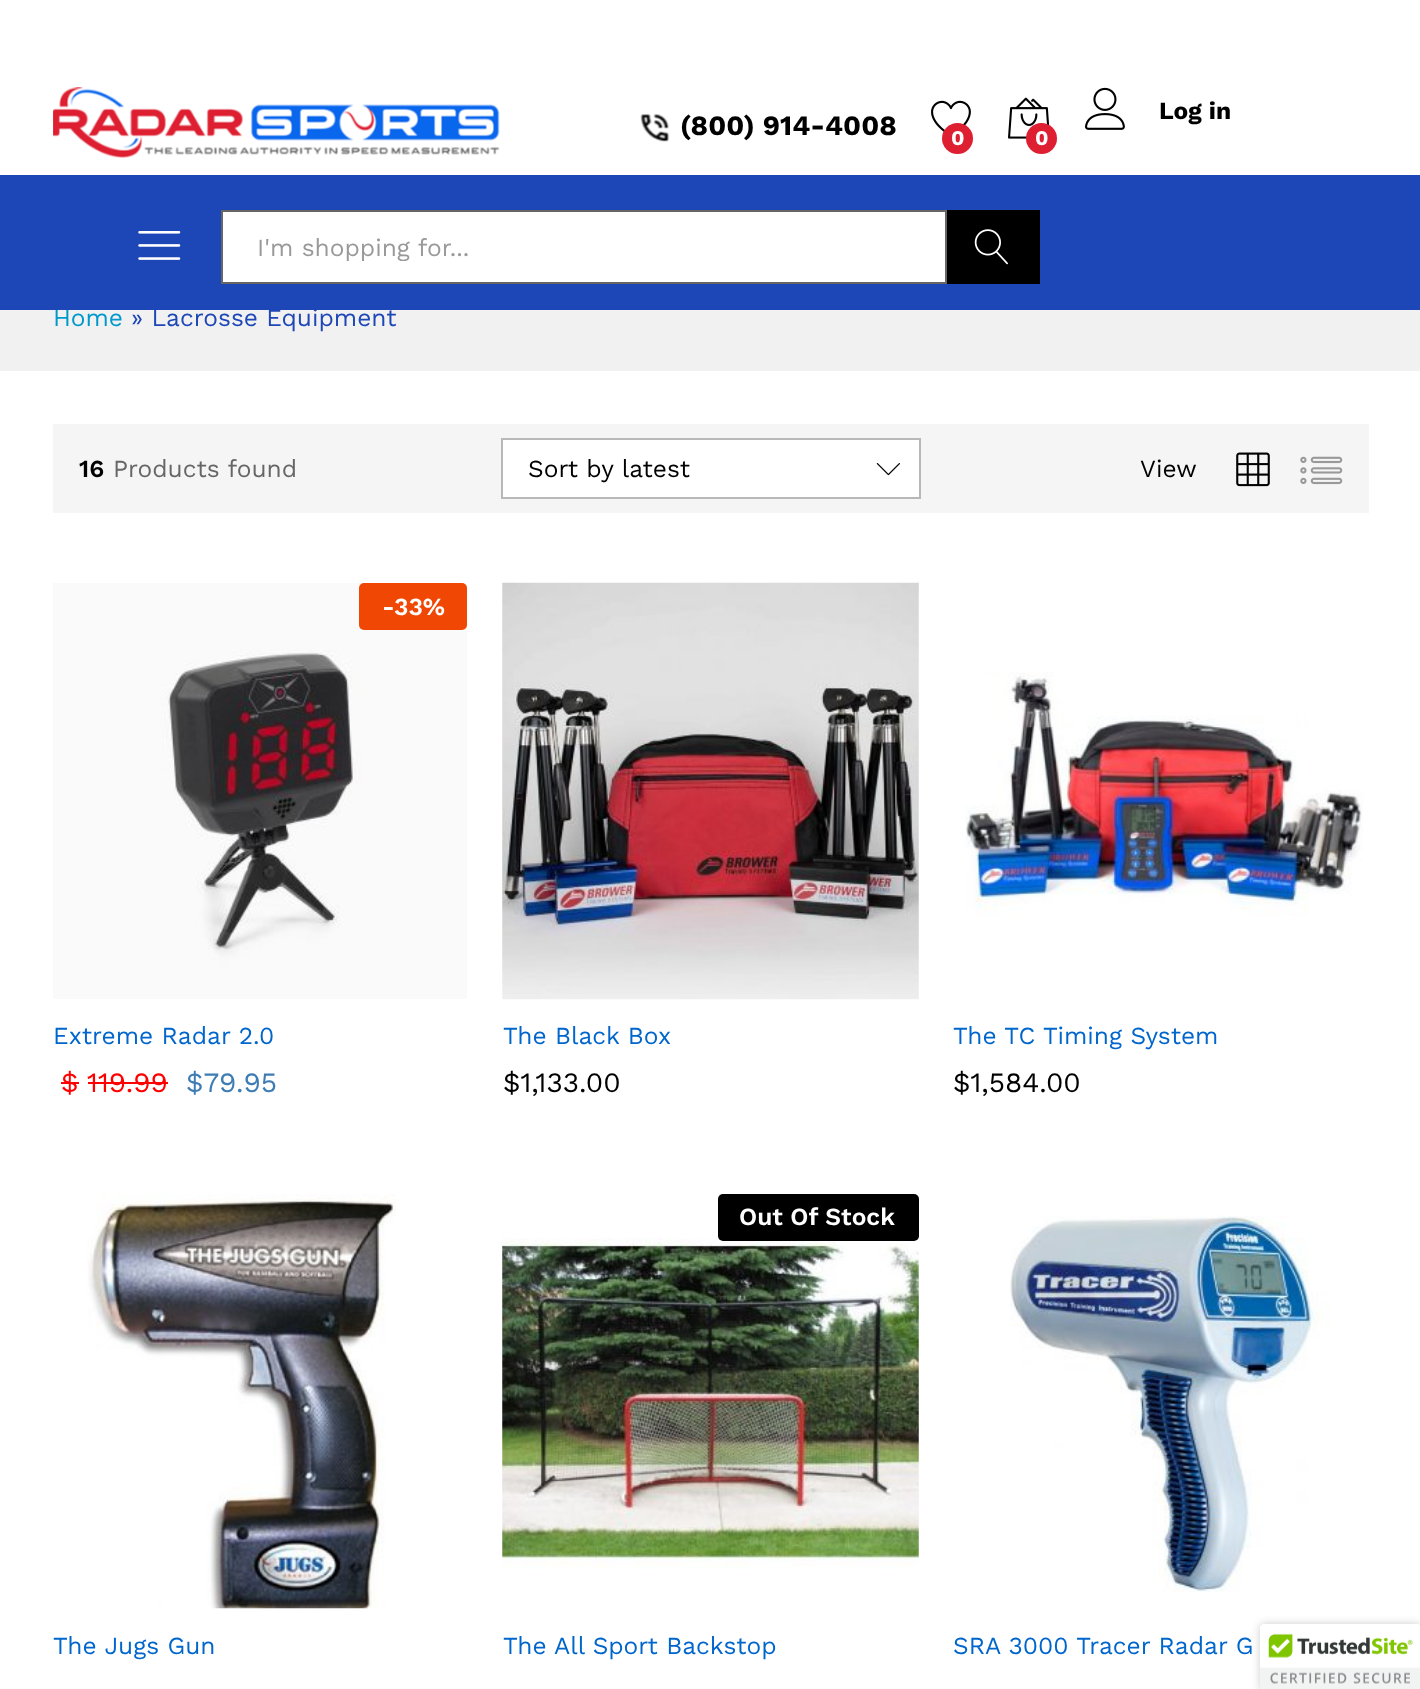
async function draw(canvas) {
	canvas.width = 1420;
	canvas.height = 1689;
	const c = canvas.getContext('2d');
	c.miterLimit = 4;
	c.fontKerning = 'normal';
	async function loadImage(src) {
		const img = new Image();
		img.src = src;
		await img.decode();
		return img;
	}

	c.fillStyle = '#fff';
	c.fillRect(0, 0, 1420, 1689);
	c.fillStyle = '#f1f1f1';
	c.fillRect(0, 310, 1420, 61);
	c.font = '24.5px Work Sans';
	c.fillStyle = '#09c';
	c.fillText('Home', 53, 326);
	c.fillStyle = '#1d46b7';
	c.fillRect(0, 175, 1420, 135);
	c.drawImage(await loadImage('img1.png'), 53, 87, 447, 71);
	c.drawImage(await loadImage('img2.png'), 640, 113, 30, 29);
	c.font = 'bold 28px Work Sans';
	c.fillStyle = '#000';
	c.fillText('(800) 914-4008', 680, 135);
	c.drawImage(await loadImage('img3.png'), 931, 100, 40, 32);
	c.fillStyle = '#dd1f31';
	c.beginPath();
	c.arc(957.5, 138.5, 15.5, 0, 2 * Math.PI);
	c.fill();
	c.font = 'bold 21px Work Sans';
	c.fillStyle = '#fff';
	c.fillText('0', 951, 145);
	c.drawImage(await loadImage('img4.png'), 1008, 97, 42, 42);
	c.fillStyle = '#dd1f31';
	c.beginPath();
	c.arc(1041.5, 138.5, 15.5, 0, 2 * Math.PI);
	c.fill();
	c.fillStyle = '#fff';
	c.fillText('0', 1035, 145);
	c.drawImage(await loadImage('img5.png'), 1085, 87, 40, 43);
	c.font = 'bold 24.5px Work Sans';
	c.fillStyle = '#000';
	c.fillText('Log in', 1159, 119);
	c.drawImage(await loadImage('img6.png'), 138, 231, 43, 29);
	c.fillStyle = '#fff';
	c.beginPath();
	c.rect(222, 211, 724, 72);
	c.fill();
	c.strokeStyle = '#666';
	c.lineWidth = 2;
	c.stroke();
	c.save();
	c.beginPath();
	c.rect(257, 233, 653, 28);
	c.clip();
	c.font = '24.5px Work Sans';
	c.fillStyle = '#999';
	c.fillText('I\'m shopping for...', 257, 256);
	c.restore();
	c.fillStyle = '#000';
	c.fillRect(947, 210, 93, 74);
	c.drawImage(await loadImage('img7.png'), 974, 229, 34, 36);
	c.font = '24.5px Work Sans';
	c.fillStyle = '#1d46b7';
	c.fillText('» Lacrosse Equipment', 131, 326);
	c.fillStyle = '#f5f5f5';
	c.fillRect(53, 424, 1316, 89);
	c.font = '600 24.5px Work Sans';
	c.fillStyle = '#000';
	c.fillText('16', 79, 477);
	c.font = '24.5px Work Sans';
	c.fillStyle = '#666';
	c.fillText('Products found', 113, 477);
	c.fillStyle = '#fff';
	c.beginPath();
	c.rect(502, 439, 418, 59);
	c.fill();
	c.strokeStyle = '#b8b8b8';
	c.stroke();
	c.fillStyle = '#000';
	c.fillText('Sort by latest', 528, 477);
	c.drawImage(await loadImage('img8.png'), 876, 463, 24, 13);
	c.fillText('View', 1140, 477);
	c.drawImage(await loadImage('img9.png'), 1236, 452, 34, 35);
	c.drawImage(await loadImage('img10.png'), 1300, 456, 43, 29);
	c.drawImage(await loadImage('img11.png'), 53, 583, 414, 416);
	c.fillStyle = '#f14705';
	c.beginPath();
	c.roundRect(359, 583, 108, 47, 5);
	c.fill();
	c.font = '600 24.5px Work Sans';
	c.fillStyle = '#fff';
	c.fillText('-', 382, 615);
	c.fillText('33%', 394, 615);
	c.font = '24.5px Work Sans';
	c.fillStyle = '#06c';
	c.fillText('Extreme Radar 2.0', 53, 1044);
	c.font = '28px Work Sans';
	c.fillStyle = '#f00';
	c.fillText('$', 61, 1092);
	c.fillRect(61, 1082, 18, 2);
	c.fillText('119.99', 87, 1092);
	c.fillRect(88, 1082, 80, 2);
	c.fillStyle = '#3e7cb4';
	c.fillText('$79.95', 186, 1092);
	c.drawImage(await loadImage('img12.png'), 502, 582, 417, 418);
	c.font = '24.5px Work Sans';
	c.fillStyle = '#06c';
	c.fillText('The Black Box', 503, 1044);
	c.font = '28px Work Sans';
	c.fillStyle = '#000';
	c.fillText('$1,133.00', 503, 1092);
	c.drawImage(await loadImage('img13.png'), 965, 672, 398, 244);
	c.font = '24.5px Work Sans';
	c.fillStyle = '#06c';
	c.fillText('The TC Timing System', 953, 1044);
	c.font = '28px Work Sans';
	c.fillStyle = '#000';
	c.fillText('$1,584.00', 953, 1092);
	c.drawImage(await loadImage('img14.png'), 87, 1194, 309, 415);
	c.font = '24.5px Work Sans';
	c.fillStyle = '#06c';
	c.fillText('The Jugs Gun', 53, 1654);
	c.drawImage(await loadImage('img15.png'), 502, 1238, 417, 331);
	c.fillStyle = '#000';
	c.beginPath();
	c.roundRect(718, 1194, 201, 47, 5);
	c.fill();
	c.font = '600 24.5px Work Sans';
	c.fillStyle = '#fff';
	c.fillText('Out Of Stock', 739, 1225);
	c.font = '24.5px Work Sans';
	c.fillStyle = '#06c';
	c.fillText('The All Sport Backstop', 503, 1654);
	c.drawImage(await loadImage('img16.png'), 1010, 1215, 320, 377);
	c.fillText('SRA 3000 Tracer Radar G', 953, 1654);
	c.fillStyle = '#00000033';
	c.filter = 'blur(4.5px)';
	c.beginPath();
	c.roundRect(1260, 1624, 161, 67, 4);
	c.fill();
	c.filter = 'none';
	c.fillStyle = '#fff';
	c.beginPath();
	c.moveTo(1264, 1624);
	c.lineTo(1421, 1624);
	c.lineTo(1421, 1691);
	c.lineTo(1260, 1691);
	c.lineTo(1260, 1628);
	c.bezierCurveTo(1260, 1626, 1262, 1624, 1264, 1624);
	c.closePath();
	c.fill();
	c.drawImage(await loadImage('img17.png'), 1260, 1624, 160, 65);
}

draw(document.querySelector('canvas'));
